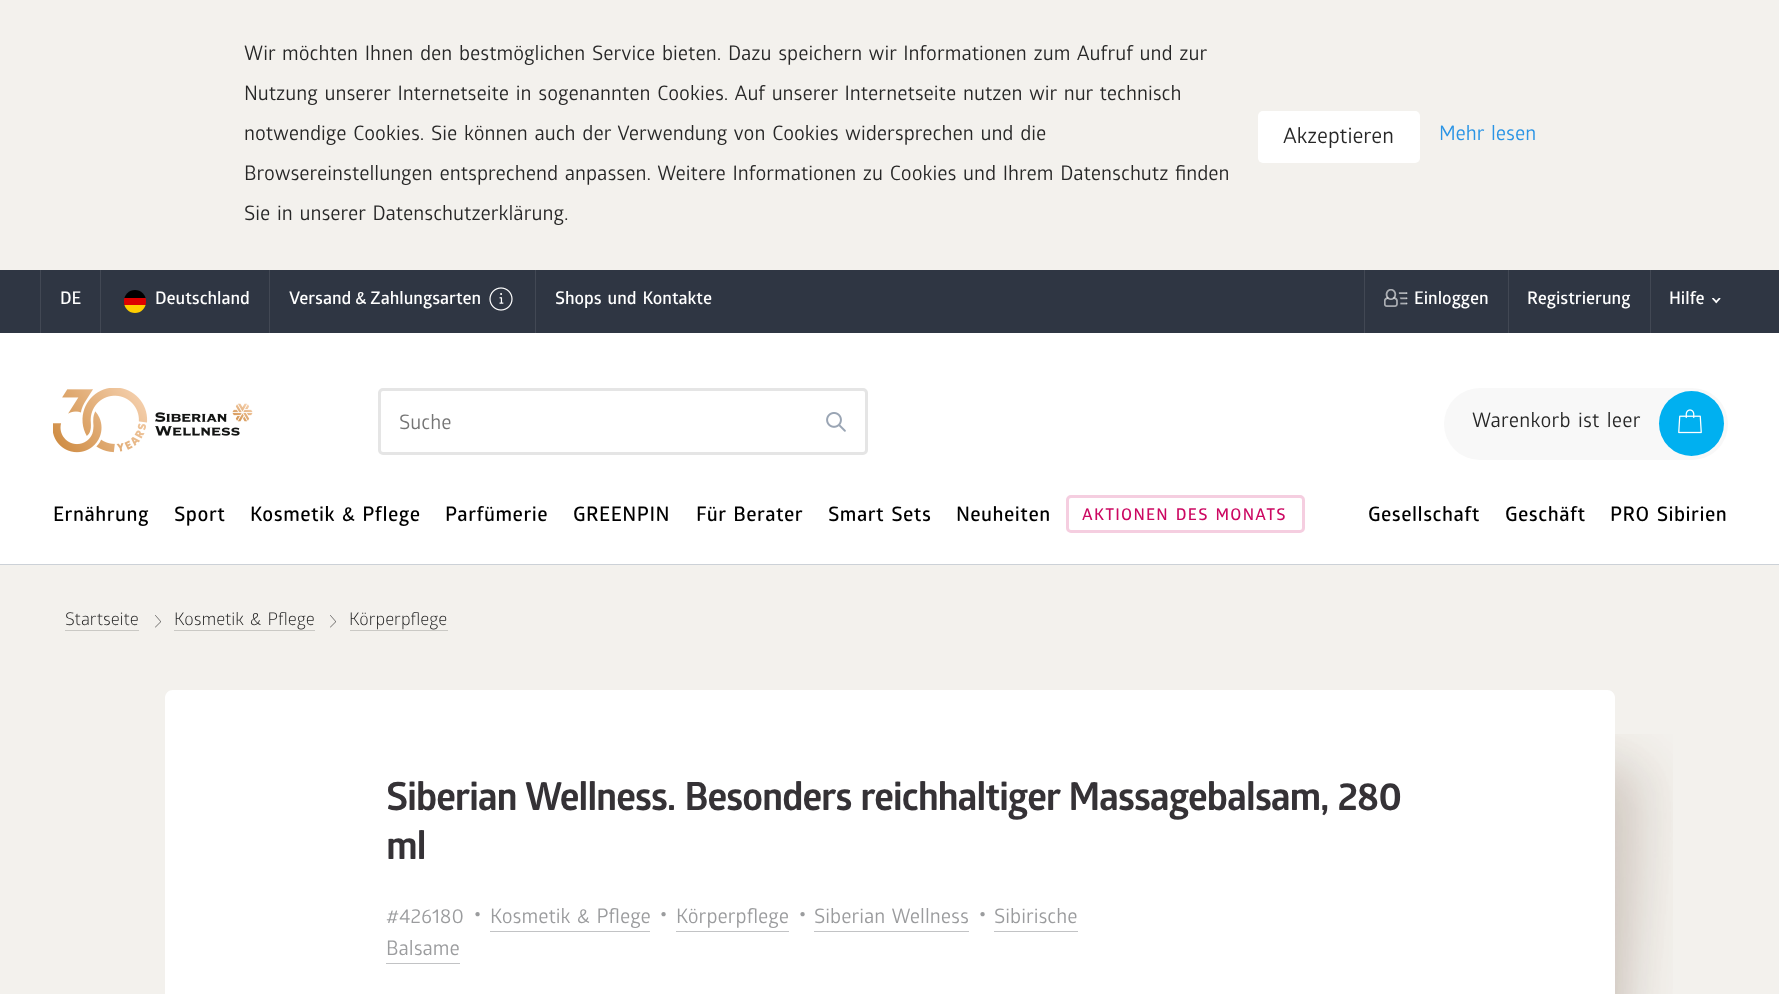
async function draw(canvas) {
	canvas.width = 1779;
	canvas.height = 994;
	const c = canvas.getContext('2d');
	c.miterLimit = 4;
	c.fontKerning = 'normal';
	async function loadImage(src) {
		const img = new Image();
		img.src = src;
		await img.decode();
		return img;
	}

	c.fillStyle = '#fff';
	c.fillRect(0, 0, 1779, 994);
	c.fillStyle = '#f3f1ed';
	c.fillRect(0, 0, 1779, 270);
	c.wordSpacing = '2px';
	c.font = '20px "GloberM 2"';
	c.fillStyle = '#272727';
	for (const [text, x, y] of [
		['Wir möchten Ihnen den bestmöglichen Service bieten. Dazu speichern wir Informationen zum Aufruf und zur', 244, 60],
		['Nutzung unserer Internetseite in sogenannten Cookies. Auf unserer Internetseite nutzen wir nur technisch', 244, 100],
		['notwendige Cookies. Sie können auch der Verwendung von Cookies widersprechen und die', 244, 140],
		['Browsereinstellungen entsprechend anpassen. Weitere Informationen zu Cookies und Ihrem Datenschutz finden', 244, 180],
		['Sie in unserer Datenschutzerklärung.', 244, 220],
	]) {
		c.fillText(text, x, y);
	}
	c.fillStyle = '#fff';
	c.beginPath();
	c.roundRect(1258, 111, 162, 52, 5);
	c.fill();
	c.wordSpacing = '0px';
	c.font = '21.25px "GloberM 2"';
	c.fillStyle = '#272727';
	c.fillText('Akzeptieren', 1283, 143);
	c.wordSpacing = '2px';
	c.font = '20px "GloberM 2"';
	c.fillStyle = '#2a94e5';
	c.fillText('Mehr lesen', 1439, 140);
	c.fillStyle = '#2f3643';
	c.fillRect(0, 270, 1779, 63);
	c.fillStyle = '#424854';
	c.fillRect(40, 270, 1, 63);
	c.wordSpacing = '0px';
	c.font = '600 17.5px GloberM';
	c.fillStyle = '#fff';
	c.fillText('DE', 60, 304);
	c.fillStyle = '#424854';
	c.fillRect(100, 270, 1, 63);
	c.save();
	c.beginPath();
	c.roundRect(124, 290, 22, 23, 11);
	c.clip();
	for (const [x, y, w, h, color] of [
		[124, 305, 22, 8, '#ffce00'],
		[124, 290, 22, 8, '#000'],
		[124, 298, 22, 7, '#d00'],
	]) {
		c.fillStyle = color;
		c.fillRect(x, y, w, h);
	}
	c.restore();
	c.fillStyle = '#fff';
	c.fillText('Deutschland', 155, 304);
	c.fillStyle = '#424854';
	c.fillRect(269, 270, 1, 63);
	c.fillStyle = '#fff';
	c.fillText('Versand & Zahlungsarten', 289, 304);
	c.drawImage(await loadImage('img1.png'), 489, 287, 24, 24);
	c.fillStyle = '#424854';
	c.fillRect(535, 270, 1, 63);
	c.wordSpacing = '2px';
	c.fillStyle = '#fff';
	c.fillText('Shops und Kontakte', 555, 304);
	c.fillStyle = '#424854';
	c.fillRect(1364, 270, 1, 63);
	c.drawImage(await loadImage('img2.png'), 1384, 289, 24, 18);
	c.wordSpacing = '0px';
	c.fillStyle = '#fff';
	c.fillText('Einloggen', 1414, 304);
	c.fillStyle = '#424854';
	c.fillRect(1508, 270, 1, 63);
	c.fillStyle = '#fff';
	c.fillText('Registrierung', 1527, 304);
	c.fillStyle = '#424854';
	c.fillRect(1650, 270, 1, 63);
	c.fillStyle = '#fff';
	c.fillText('Hilfe', 1669, 304);
	c.drawImage(await loadImage('img3.png'), 1712, 298, 9, 6);
	c.fillStyle = '#ccd1d7';
	c.fillRect(0, 564, 1779, 1);
	c.drawImage(await loadImage('img4.png'), 53, 388, 200, 65);
	c.beginPath();
	c.roundRect(379.5, 389.5, 487, 64, 3.5);
	c.strokeStyle = '#e5e5e5';
	c.lineWidth = 3;
	c.stroke();
	c.font = '20px "GloberM 2"';
	c.fillStyle = '#757575';
	c.fillText('Suche', 399, 429);
	c.drawImage(await loadImage('img5.png'), 826, 412, 20, 20);
	c.fillStyle = '#f8f8f8';
	c.beginPath();
	c.roundRect(1444, 388, 284, 72, 36);
	c.fill();
	c.letterSpacing = '0.25px';
	c.wordSpacing = '2px';
	c.fillStyle = '#272727';
	c.fillText('Warenkorb ist leer', 1472, 427);
	c.fillStyle = '#00b0f0';
	c.beginPath();
	c.arc(1691.5, 423.5, 32.5, 0, 2 * Math.PI);
	c.fill();
	c.drawImage(await loadImage('img6.png'), 1678, 409, 24, 25);
	c.letterSpacing = '0.5px';
	c.wordSpacing = '0px';
	c.font = '600 20px GloberM';
	c.fillStyle = '#000';
	c.fillText('Ernährung', 53, 521);
	c.fillText('Sport', 174, 521);
	c.wordSpacing = '2px';
	c.fillText('Kosmetik & Pflege', 250, 521);
	c.wordSpacing = '0px';
	c.fillText('Parfümerie', 445, 521);
	c.fillText('GREENPIN', 573, 521);
	c.wordSpacing = '2px';
	c.fillText('Für Berater', 696, 521);
	c.fillText('Smart Sets', 828, 521);
	c.wordSpacing = '0px';
	c.fillText('Neuheiten', 956, 521);
	c.beginPath();
	c.roundRect(1067.5, 496.5, 236, 35, 3.5);
	c.strokeStyle = '#f5cee0';
	c.stroke();
	c.letterSpacing = '1.25px';
	c.wordSpacing = '2px';
	c.font = '600 16.25px GloberM';
	c.fillStyle = '#cc0862';
	c.fillText('AKTIONEN DES MONATS', 1082, 520);
	c.letterSpacing = '0.5px';
	c.wordSpacing = '0px';
	c.font = '600 20px GloberM';
	c.fillStyle = '#000';
	c.fillText('Gesellschaft', 1368, 521);
	c.fillText('Geschäft', 1505, 521);
	c.wordSpacing = '2px';
	c.fillText('PRO Sibirien', 1610, 521);
	c.fillStyle = '#f3f1ed';
	c.fillRect(0, 565, 1779, 429);
	c.drawImage(await loadImage('img7.png'), 155, 615, 6, 13);
	c.letterSpacing = '0px';
	c.wordSpacing = '0px';
	c.font = '17.5px GloberM';
	c.fillStyle = '#272727';
	c.fillText('Startseite', 65, 625);
	c.fillStyle = '#cac9c5';
	c.fillRect(65, 630, 74, 1);
	c.drawImage(await loadImage('img7.png'), 330, 615, 6, 13);
	c.wordSpacing = '2px';
	c.fillStyle = '#272727';
	c.fillText('Kosmetik & Pflege', 174, 625);
	c.fillStyle = '#cac9c5';
	c.fillRect(174, 630, 141, 1);
	c.wordSpacing = '0px';
	c.fillStyle = '#272727';
	c.fillText('Körperpflege', 349, 625);
	c.fillStyle = '#cac9c5';
	c.fillRect(350, 630, 98, 1);
	c.fillStyle = '#fff';
	c.beginPath();
	c.moveTo(173, 690);
	c.lineTo(1607, 690);
	c.bezierCurveTo(1611.5, 690, 1615, 693.5, 1615, 698);
	c.lineTo(1615, 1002);
	c.lineTo(165, 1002);
	c.lineTo(165, 698);
	c.bezierCurveTo(165, 693.5, 168.5, 690, 173, 690);
	c.closePath();
	c.fill();
	c.letterSpacing = '-1.25px';
	c.wordSpacing = '2px';
	c.font = 'bold 38.75px GloberM';
	c.fillStyle = '#353236';
	c.fillText('Siberian Wellness. Besonders reichhaltiger Massagebalsam, 280', 386, 810);
	c.wordSpacing = '0px';
	c.fillText('ml', 386, 859);
	c.letterSpacing = '0px';
	c.font = '20px "GloberM 2"';
	c.fillStyle = '#9b9c9e';
	c.fillText('#426180', 386, 923);
	c.font = '35px "GloberM 2"';
	c.fillText('•', 472, 924);
	c.wordSpacing = '2px';
	c.font = '20px "GloberM 2"';
	c.fillText('Kosmetik & Pflege', 490, 923);
	c.fillStyle = '#c2c3c5';
	c.fillRect(490, 931, 160, 1);
	c.wordSpacing = '0px';
	c.font = '35px "GloberM 2"';
	c.fillStyle = '#9b9c9e';
	c.fillText('•', 658, 924);
	c.font = '20px "GloberM 2"';
	c.fillText('Körperpflege', 676, 923);
	c.fillStyle = '#c2c3c5';
	c.fillRect(676, 931, 113, 1);
	c.font = '35px "GloberM 2"';
	c.fillStyle = '#9b9c9e';
	c.fillText('•', 797, 924);
	c.wordSpacing = '2px';
	c.font = '20px "GloberM 2"';
	c.fillText('Siberian Wellness', 814, 923);
	c.fillStyle = '#c2c3c5';
	c.fillRect(814, 931, 155, 1);
	c.wordSpacing = '0px';
	c.font = '35px "GloberM 2"';
	c.fillStyle = '#9b9c9e';
	c.fillText('•', 977, 924);
	c.font = '20px "GloberM 2"';
	c.fillText('Sibirische', 994, 923);
	c.fillStyle = '#c2c3c5';
	c.fillRect(994, 931, 84, 1);
	c.fillStyle = '#9b9c9e';
	c.fillText('Balsame', 386, 955);
	c.fillStyle = '#c2c3c5';
	c.fillRect(386, 963, 74, 1);
	c.drawImage(await loadImage('img8.png'), 1615, 734, 58, 260);
}

draw(document.querySelector('canvas'));
